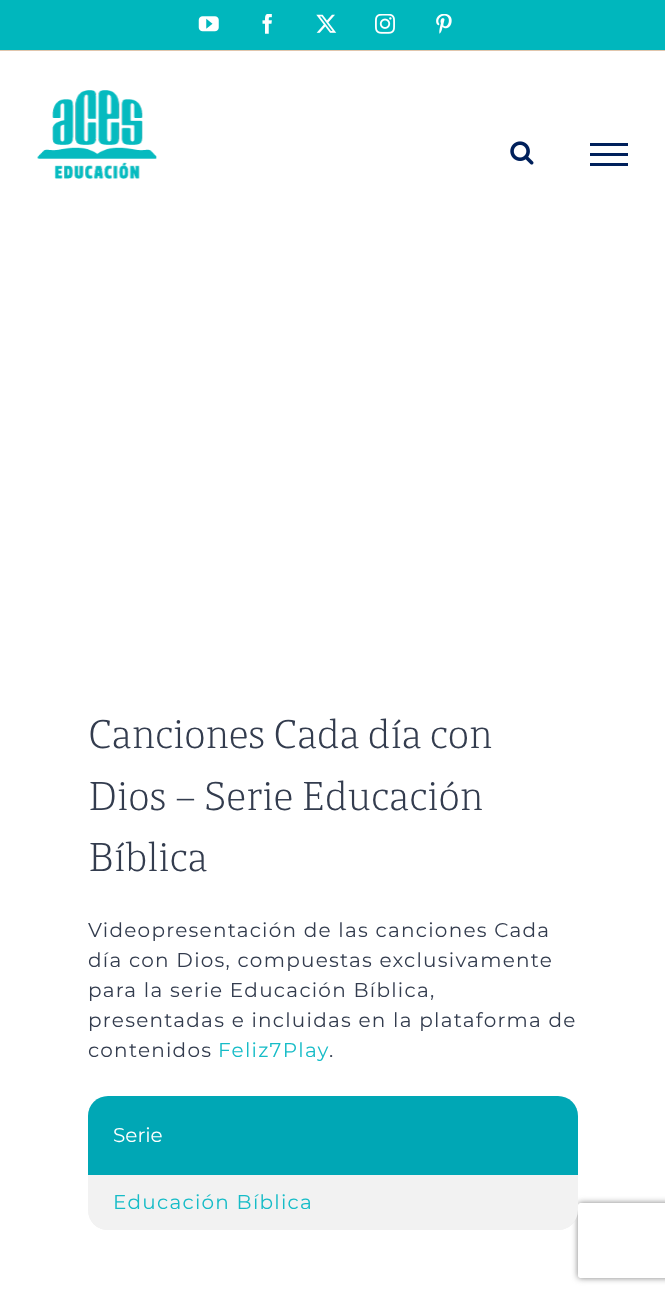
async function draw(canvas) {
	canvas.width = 665;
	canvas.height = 1294;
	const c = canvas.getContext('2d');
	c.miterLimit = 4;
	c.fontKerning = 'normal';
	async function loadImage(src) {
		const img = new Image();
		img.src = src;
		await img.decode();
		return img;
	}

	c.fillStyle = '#fff';
	c.fillRect(0, 0, 665, 1294);
	c.fillStyle = '#00b7bd';
	c.fillRect(0, 0, 665, 50);
	c.fillStyle = '#e0c6ad';
	c.fillRect(0, 50, 665, 1);
	c.drawImage(await loadImage('img1.png'), 198, 16, 21, 16);
	c.drawImage(await loadImage('img2.png'), 262, 14, 10, 20);
	c.drawImage(await loadImage('img3.png'), 316, 14, 21, 19);
	c.drawImage(await loadImage('img4.png'), 375, 14, 20, 20);
	c.drawImage(await loadImage('img5.png'), 436, 14, 16, 20);
	c.drawImage(await loadImage('img6.png'), 37, 90, 120, 89);
	c.drawImage(await loadImage('img7.png'), 510, 141, 24, 24);
	for (const [x, y, w, h, color] of [
		[590, 143, 38, 3, '#00205b'],
		[590, 153, 38, 3, '#00205b'],
		[590, 163, 38, 3, '#00205b'],
	]) {
		c.fillStyle = color;
		c.fillRect(x, y, w, h);
	}
	c.font = '44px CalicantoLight';
	c.fillStyle = '#333c4e';
	for (const [text, x, y] of [
		['Canciones Cada día con', 88, 748],
		['Dios – Serie Educación', 88, 810],
		['Bíblica', 88, 871],
	]) {
		c.fillText(text, x, y);
	}
	c.letterSpacing = '1.25px';
	c.font = '20px Montserrat';
	for (const [text, x, y] of [
		['Videopresentación de las canciones Cada', 88, 937],
		['día con Dios, compuestas exclusivamente', 88, 967],
		['para la serie Educación Bíblica,', 88, 997],
		['presentadas e incluidas en la plataforma de', 88, 1027],
		['contenidos', 88, 1057],
	]) {
		c.fillText(text, x, y);
	}
	c.fillStyle = '#16bcc7';
	c.fillText('Feliz7Play', 218, 1057);
	c.fillStyle = '#333c4e';
	c.fillText('.', 329, 1057);
	c.save();
	c.beginPath();
	c.roundRect(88, 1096, 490, 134, 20);
	c.clip();
	c.fillStyle = '#00000014';
	c.filter = 'blur(2px)';
	c.beginPath();
	c.rect(88, 1098, 490, 133);
	c.fill();
	c.filter = 'none';
	c.restore();
	c.fillStyle = '#00a7b5';
	c.beginPath();
	c.roundRect(88, 1096, 490, 79, [20, 20, 0, 0]);
	c.fill();
	c.letterSpacing = '0px';
	c.fillStyle = '#fff';
	c.fillText('Serie', 113, 1142);
	c.save();
	c.beginPath();
	c.moveTo(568, 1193);
	c.lineTo(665, 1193);
	c.lineTo(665, 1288);
	c.lineTo(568, 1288);
	c.closePath();
	c.moveTo(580.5, 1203);
	c.lineTo(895.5, 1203);
	c.bezierCurveTo(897, 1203, 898, 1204, 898, 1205.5);
	c.lineTo(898, 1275.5);
	c.bezierCurveTo(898, 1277, 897, 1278, 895.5, 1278);
	c.lineTo(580.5, 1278);
	c.bezierCurveTo(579, 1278, 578, 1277, 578, 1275.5);
	c.lineTo(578, 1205.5);
	c.bezierCurveTo(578, 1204, 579, 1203, 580.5, 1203);
	c.closePath();
	c.clip('evenodd');
	c.fillStyle = '#808080';
	c.filter = 'blur(3px)';
	c.beginPath();
	c.roundRect(578, 1203, 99, 75, 2.5);
	c.fill();
	c.filter = 'none';
	c.restore();
	c.fillStyle = '#f2f2f2';
	c.beginPath();
	c.roundRect(88, 1175, 490, 55, [0, 0, 20, 20]);
	c.fill();
	c.letterSpacing = '1.25px';
	c.fillStyle = '#16bcc7';
	c.fillText('Educación Bíblica', 113, 1209);
}

draw(document.querySelector('canvas'));
